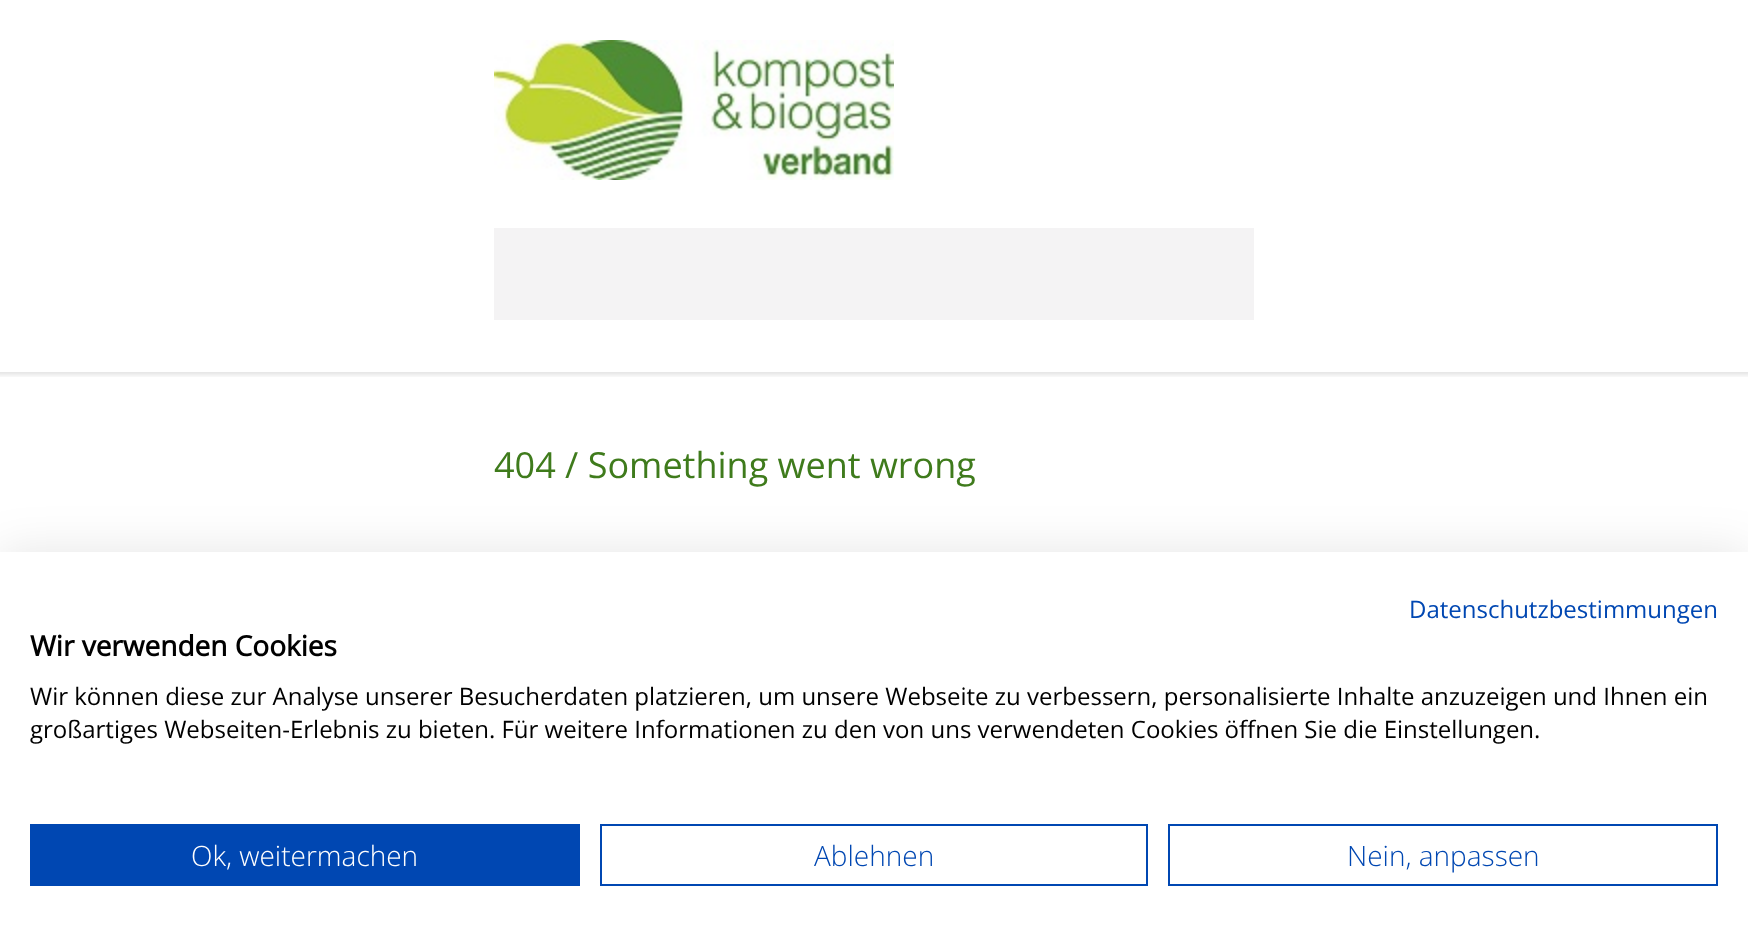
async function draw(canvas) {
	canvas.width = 1748;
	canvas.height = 940;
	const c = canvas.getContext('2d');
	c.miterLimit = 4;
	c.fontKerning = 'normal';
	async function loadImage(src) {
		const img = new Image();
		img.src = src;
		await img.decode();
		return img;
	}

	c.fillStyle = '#fff';
	c.fillRect(0, 0, 1748, 940);
	c.drawImage(await loadImage('img1.png'), 494, 40, 400, 140);
	c.fillStyle = '#f4f3f4';
	c.fillRect(494, 228, 760, 92);
	c.drawImage(await loadImage('img2.png'), 0, 372, 1748, 5);
	c.font = '36px Open Sans';
	c.fillStyle = '#3f7b1c';
	c.fillText('404 / Something went wrong', 494, 478);
	c.fillStyle = '#0000001a';
	c.filter = 'blur(24px)';
	c.beginPath();
	c.rect(0, 552, 1748, 388);
	c.fill();
	c.filter = 'none';
	c.fillStyle = '#fff';
	c.fillRect(0, 552, 1748, 388);
	c.font = '24px Open Sans';
	c.fillStyle = '#0047b2';
	c.fillText('Datenschutzbestimmungen', 1409, 618);
	c.font = 'bold 28px Open Sans';
	c.fillStyle = '#000';
	c.fillText('Wir verwenden Cookies', 30, 656);
	c.font = '24px Open Sans';
	c.fillText('Wir können diese zur Analyse unserer Besucherdaten platzieren, um unsere Webseite zu verbessern, personalisierte Inhalte anzuzeigen und Ihnen ein', 30, 705);
	c.fillText('großartiges Webseiten-Erlebnis zu bieten. Für weitere Informationen zu den von uns verwendeten Cookies öffnen Sie die Einstellungen.', 30, 738);
	c.fillStyle = '#0047b2';
	c.fillRect(30, 824, 550, 62);
	c.font = '300 28px Open Sans';
	c.fillStyle = '#fff';
	c.fillText('Ok, weitermachen', 191, 866);
	c.strokeStyle = '#0047b2';
	c.lineWidth = 2;
	c.strokeRect(601, 825, 546, 60);
	c.fillStyle = '#0047b2';
	c.fillText('Ablehnen', 814, 866);
	c.strokeRect(1169, 825, 548, 60);
	c.fillText('Nein, anpassen', 1347, 866);
}

draw(document.querySelector('canvas'));
